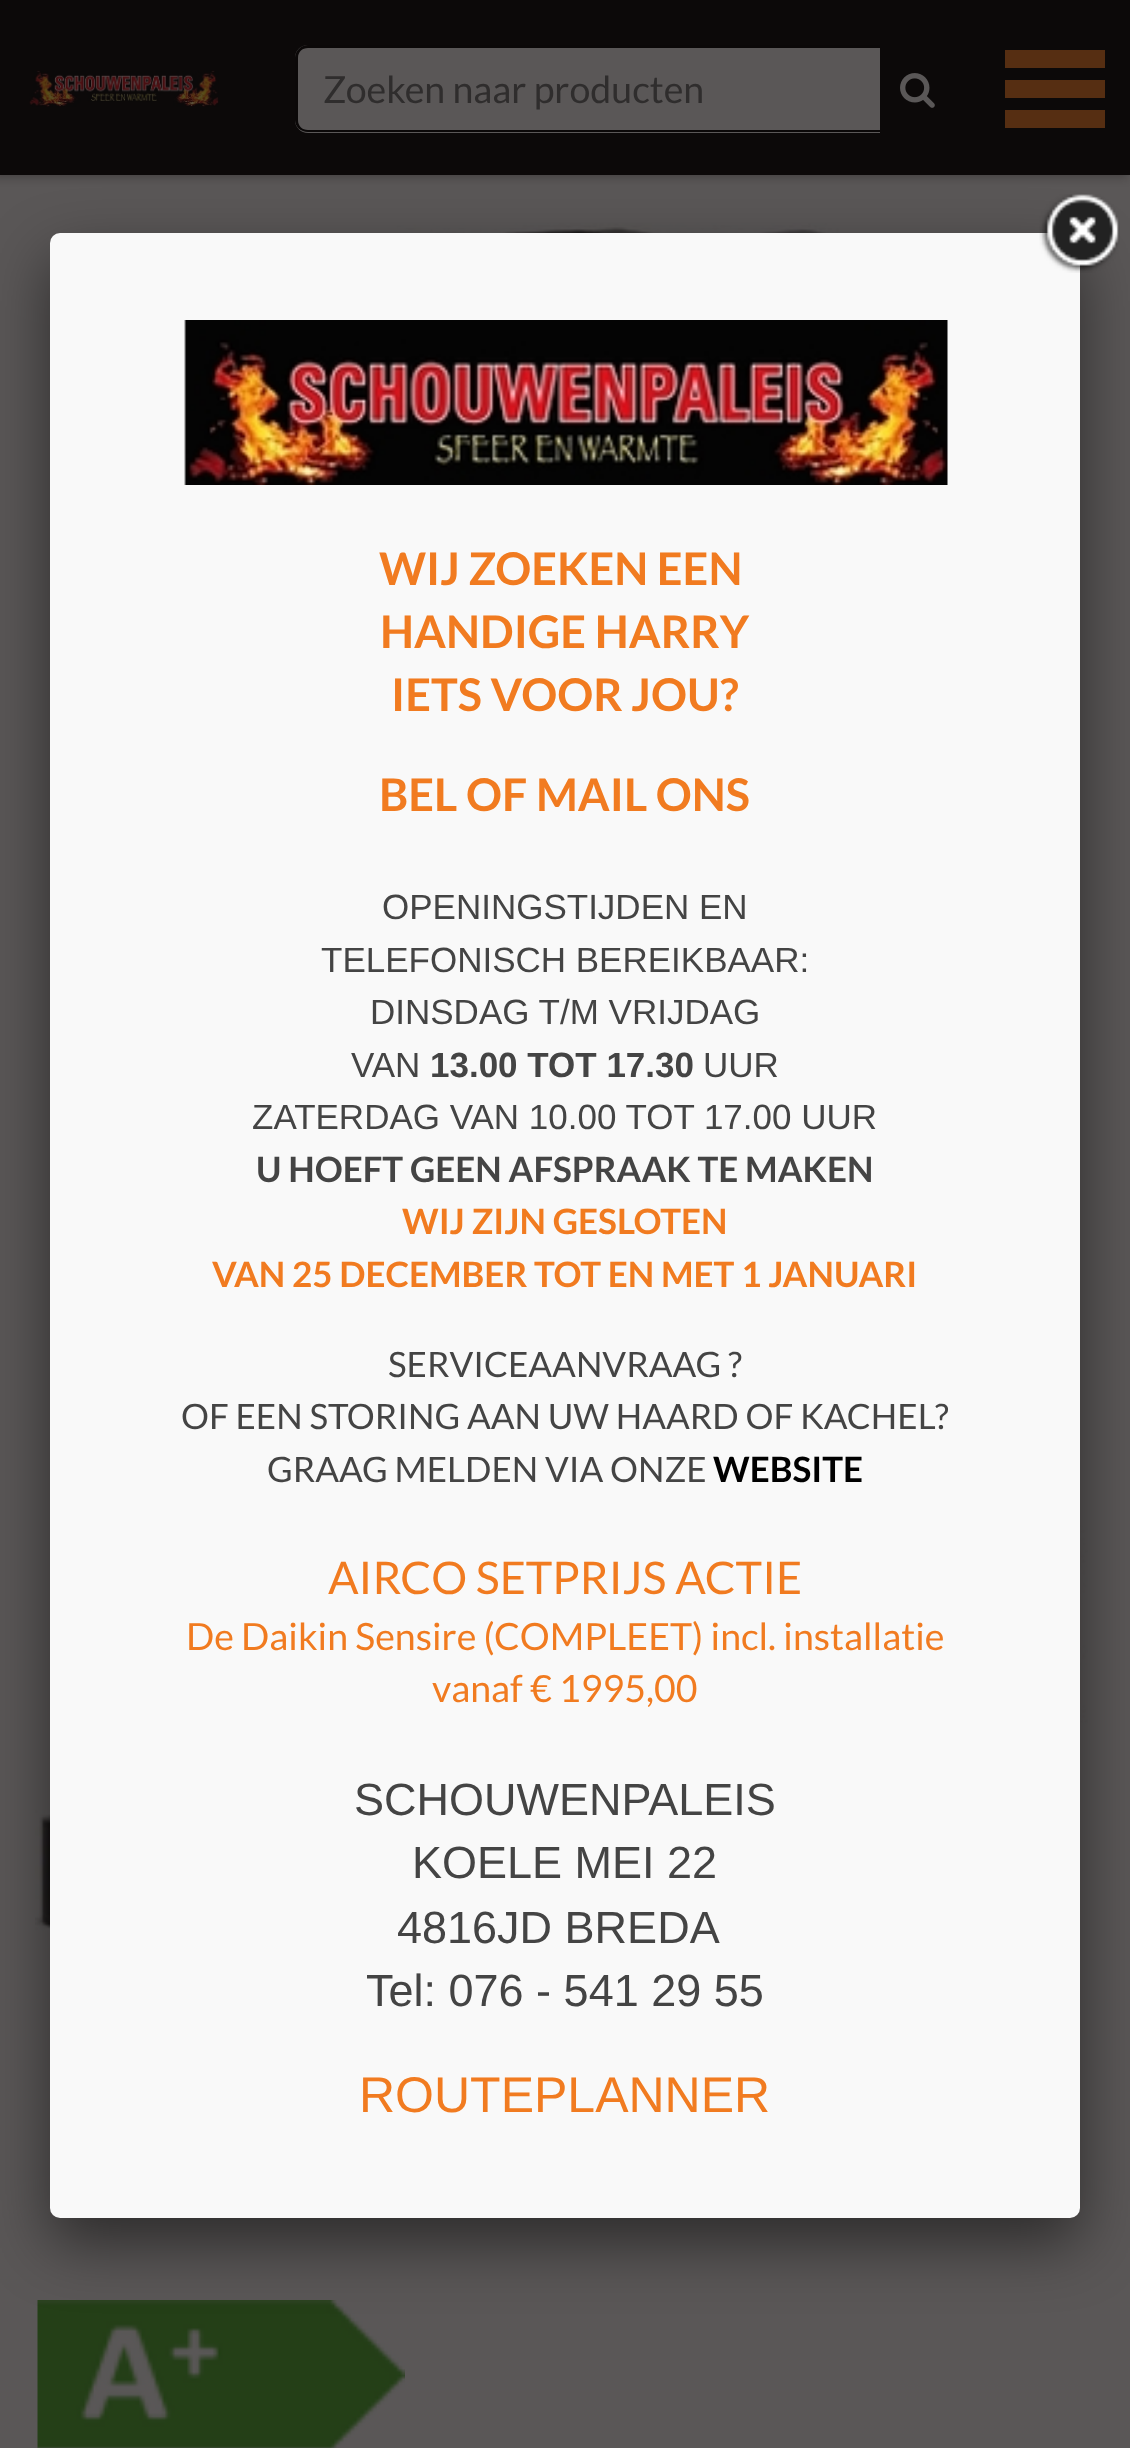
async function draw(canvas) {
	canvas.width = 1130;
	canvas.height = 2448;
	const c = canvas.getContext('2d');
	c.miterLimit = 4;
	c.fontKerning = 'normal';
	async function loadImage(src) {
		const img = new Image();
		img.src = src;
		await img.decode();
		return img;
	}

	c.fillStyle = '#5a5757';
	c.fillRect(0, 0, 1130, 2448);
	c.fillStyle = '#0b080840';
	c.filter = 'blur(4px)';
	c.beginPath();
	c.rect(-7, -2, 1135, 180);
	c.fill();
	c.filter = 'none';
	c.fillStyle = '#0c0909';
	c.fillRect(0, 0, 1130, 175);
	c.drawImage(await loadImage('img1.png'), 29, 70, 190, 37);
	c.fillStyle = '#5a5757';
	c.beginPath();
	c.roundRect(295, 45, 585, 88, [13, 0, 0, 13]);
	c.fill();
	c.fillStyle = '#0b0808';
	c.beginPath();
	c.moveTo(308, 45);
	c.lineTo(880, 45);
	c.lineTo(880, 132);
	c.lineTo(308, 132);
	c.bezierCurveTo(301, 132, 295, 127, 295, 120);
	c.lineTo(295, 58);
	c.bezierCurveTo(295, 51, 301, 45, 308, 45);
	c.closePath();
	c.moveTo(308, 48);
	c.lineTo(880, 48);
	c.lineTo(880, 130);
	c.lineTo(308, 130);
	c.bezierCurveTo(302, 130, 298, 126, 298, 120);
	c.lineTo(298, 58);
	c.bezierCurveTo(298, 52, 302, 48, 308, 48);
	c.closePath();
	c.fill('evenodd');
	c.font = '37.5px Lato';
	c.fillStyle = '#2f2d2d';
	c.fillText('Zoeken naar producten', 323, 103);
	c.drawImage(await loadImage('img2.png'), 900, 73, 35, 35);
	for (const [x, y, w, h, color] of [
		[1005, 50, 100, 18, '#562e12'],
		[1005, 80, 100, 18, '#562e12'],
		[1005, 110, 100, 18, '#562e12'],
	]) {
		c.fillStyle = color;
		c.fillRect(x, y, w, h);
	}
	c.drawImage(await loadImage('img3.png'), 181, 223, 665, 10);
	c.drawImage(await loadImage('img4.png'), 1080, 1525, 8, 200);
	c.drawImage(await loadImage('img5.png'), 35, 1790, 15, 141);
	c.drawImage(await loadImage('img6.png'), 37, 2300, 368, 148);
	c.fillStyle = '#00000080';
	c.filter = 'blur(31px)';
	c.beginPath();
	c.roundRect(50, 258, 1030, 1985, 10);
	c.fill();
	c.filter = 'none';
	c.fillStyle = '#f9f9f9';
	c.beginPath();
	c.roundRect(50, 233, 1030, 1985, 10);
	c.fill();
	c.drawImage(await loadImage('img7.png'), 1039, 194, 81, 79);
	c.drawImage(await loadImage('img8.png'), 184, 320, 764, 165);
	c.font = 'bold 45px Lato';
	c.fillStyle = '#f17b20';
	for (const [text, x, y] of [
		['WIJ ZOEKEN EEN', 379, 585],
		['HANDIGE HARRY', 380, 648],
		['IETS VOOR JOU?', 391, 711],
		['BEL OF MAIL ONS', 379, 811],
	]) {
		c.fillText(text, x, y);
	}
	c.font = '35px Liberation Sans';
	c.fillStyle = '#444';
	for (const [text, x, y] of [
		['OPENINGSTIJDEN EN', 382, 919],
		['TELEFONISCH BEREIKBAAR:', 321, 972],
		['DINSDAG T/M VRIJDAG', 370, 1024],
		['VAN', 351, 1077],
	]) {
		c.fillText(text, x, y);
	}
	c.font = 'bold 35px Liberation Sans';
	c.fillText('13.00 TOT 17.30', 430, 1077);
	c.font = '35px Liberation Sans';
	c.fillText('UUR', 703, 1077);
	c.fillText('ZATERDAG VAN 10.00 TOT 17.00 UUR', 252, 1129);
	c.font = 'bold 35px Lato';
	c.fillText('U HOEFT GEEN AFSPRAAK TE MAKEN', 256, 1182);
	c.fillStyle = '#f17b20';
	c.fillText('WIJ ZIJN GESLOTEN', 402, 1234);
	c.fillText('VAN 25 DECEMBER TOT EN MET 1 JANUARI', 212, 1287);
	c.font = '35px Lato';
	c.fillStyle = '#444';
	for (const [text, x, y] of [
		['SERVICEAANVRAAG ?', 388, 1377],
		['OF EEN STORING AAN UW HAARD OF KACHEL?', 181, 1429],
		['GRAAG MELDEN VIA ONZE', 267, 1482],
	]) {
		c.fillText(text, x, y);
	}
	c.font = 'bold 35px Lato';
	c.fillStyle = '#000';
	c.fillText('WEBSITE', 713, 1482);
	c.font = '45px Lato';
	c.fillStyle = '#f17b20';
	c.fillText('AIRCO SETPRIJS ACTIE', 328, 1594);
	c.font = '37.5px Lato';
	c.fillText('De Daikin Sensire (COMPLEET) incl. installatie', 186, 1650);
	c.fillText('vanaf € 1995,00', 432, 1702);
	c.font = '45px Liberation Sans';
	c.fillStyle = '#444';
	for (const [text, x, y] of [
		['SCHOUWENPALEIS', 354, 1815],
		['KOELE MEI 22', 412, 1878],
		['4816JD BREDA', 397, 1943],
		['Tel: 076 - 541 29 55', 366, 2006],
	]) {
		c.fillText(text, x, y);
	}
	c.font = '50px Liberation Sans';
	c.fillStyle = '#f17b20';
	c.fillText('ROUTEPLANNER', 359, 2112);
}

draw(document.querySelector('canvas'));
